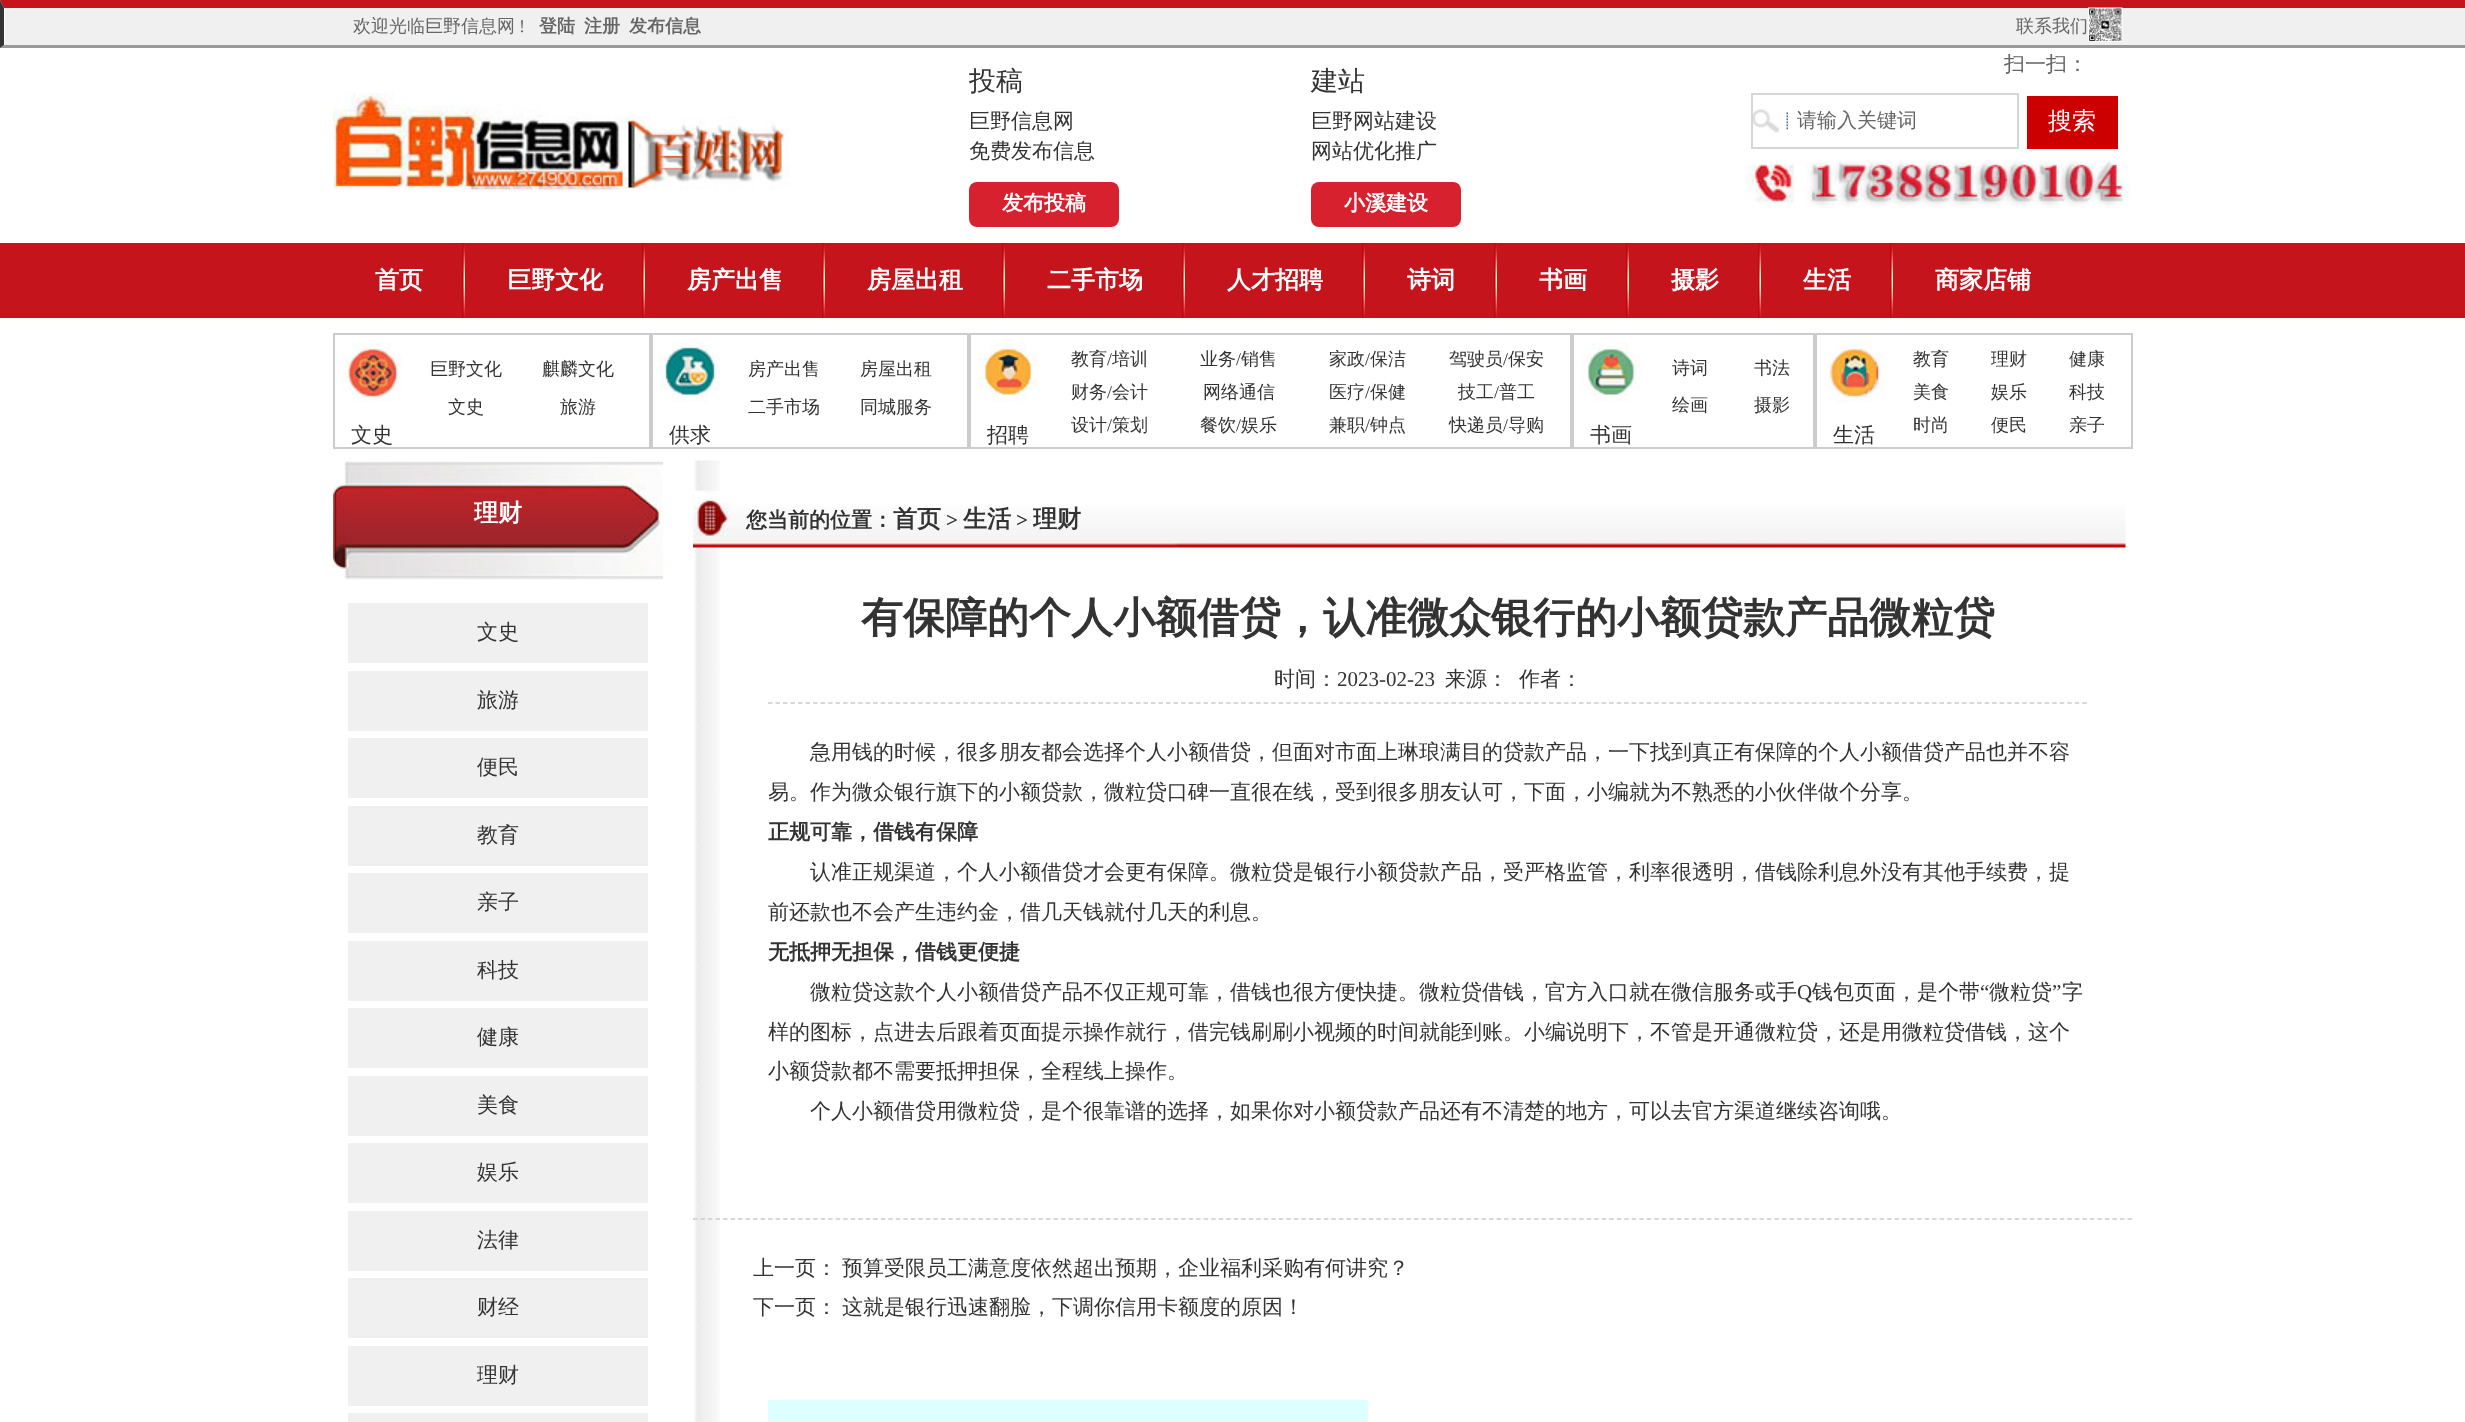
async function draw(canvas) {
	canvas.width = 2465;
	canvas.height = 1422;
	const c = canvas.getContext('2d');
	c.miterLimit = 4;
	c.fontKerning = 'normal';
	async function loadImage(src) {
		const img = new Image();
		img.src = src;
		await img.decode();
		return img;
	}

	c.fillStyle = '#fff';
	c.fillRect(0, 0, 2465, 1422);
	c.fillStyle = '#f0f0f0';
	c.fillRect(5, 8, 2460, 37);
	c.fillStyle = '#c5141c';
	c.beginPath();
	c.moveTo(0, 0);
	c.lineTo(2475, 0);
	c.lineTo(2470, 8);
	c.lineTo(4, 8);
	c.closePath();
	c.fill();
	c.fillStyle = '#999';
	c.beginPath();
	c.moveTo(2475, 48);
	c.lineTo(0, 48);
	c.lineTo(4, 45);
	c.lineTo(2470, 45);
	c.closePath();
	c.fill();
	c.fillStyle = '#333';
	c.beginPath();
	c.moveTo(0, 48);
	c.lineTo(0, 0);
	c.lineTo(4, 8);
	c.lineTo(4, 45);
	c.closePath();
	c.fill();
	c.font = '500 18px WenQuanYi Zen Hei';
	c.fillStyle = '#666';
	c.fillText('欢迎光临巨野信息网', 353, 32);
	c.font = '18px Liberation Serif';
	c.fillText('!', 519, 32);
	c.font = 'bold 18px WenQuanYi Zen Hei';
	for (const [text, x, y] of [
		['登陆', 539, 32],
		['注册', 584, 32],
		['发布信息', 629, 32],
	]) {
		c.fillText(text, x, y);
	}
	c.font = '500 18px WenQuanYi Zen Hei';
	c.fillText('联系我们', 2016, 32);
	c.font = '500 21px WenQuanYi Zen Hei';
	c.fillText('扫一扫：', 2004, 71);
	c.drawImage(await loadImage('img1.png'), 2088, 7, 35, 35);
	c.drawImage(await loadImage('img2.png'), 333, 93, 456, 98);
	c.font = '500 27px WenQuanYi Zen Hei';
	c.fillStyle = '#333';
	c.fillText('投稿', 969, 90);
	c.font = '500 21px WenQuanYi Zen Hei';
	c.fillText('巨野信息网', 969, 128);
	c.fillText('免费发布信息', 969, 158);
	c.fillStyle = '#d7212f';
	c.beginPath();
	c.roundRect(969, 182, 150, 45, 8);
	c.fill();
	c.font = 'bold 21px WenQuanYi Zen Hei';
	c.fillStyle = '#fff';
	c.fillText('发布投稿', 1002, 210);
	c.font = '500 27px WenQuanYi Zen Hei';
	c.fillStyle = '#333';
	c.fillText('建站', 1311, 90);
	c.font = '500 21px WenQuanYi Zen Hei';
	c.fillText('巨野网站建设', 1311, 128);
	c.fillText('网站优化推广', 1311, 158);
	c.fillStyle = '#d7212f';
	c.beginPath();
	c.roundRect(1311, 182, 150, 45, 8);
	c.fill();
	c.font = 'bold 21px WenQuanYi Zen Hei';
	c.fillStyle = '#fff';
	c.fillText('小溪建设', 1344, 210);
	c.drawImage(await loadImage('img3.png'), 1753, 109, 35, 24);
	c.strokeStyle = '#d6d6d6';
	c.lineWidth = 2;
	c.strokeRect(1752, 94, 266, 54);
	c.font = '500 20px WenQuanYi Zen Hei';
	c.fillStyle = '#666';
	c.fillText('请输入关键词', 1797, 127);
	c.fillStyle = '#c00';
	c.fillRect(2027, 96, 91, 53);
	c.font = '500 24px WenQuanYi Zen Hei';
	c.fillStyle = '#fff';
	c.fillText('搜索', 2048, 129);
	c.drawImage(await loadImage('img4.png'), 1746, 160, 384, 48);
	c.fillStyle = '#c5141c';
	c.fillRect(0, 243, 2465, 75);
	c.drawImage(await loadImage('img5.png'), 462, 243, 3, 75);
	c.font = 'bold 24px WenQuanYi Zen Hei';
	c.fillStyle = '#fff';
	c.fillText('首页', 375, 288);
	c.drawImage(await loadImage('img6.png'), 642, 243, 3, 75);
	c.fillText('巨野文化', 507, 288);
	c.drawImage(await loadImage('img6.png'), 822, 243, 3, 75);
	c.fillText('房产出售', 687, 288);
	c.drawImage(await loadImage('img6.png'), 1002, 243, 3, 75);
	c.fillText('房屋出租', 867, 288);
	c.drawImage(await loadImage('img5.png'), 1182, 243, 3, 75);
	c.fillText('二手市场', 1047, 288);
	c.drawImage(await loadImage('img5.png'), 1362, 243, 3, 75);
	c.fillText('人才招聘', 1227, 288);
	c.drawImage(await loadImage('img5.png'), 1494, 243, 3, 75);
	c.fillText('诗词', 1407, 288);
	c.drawImage(await loadImage('img6.png'), 1626, 243, 3, 75);
	c.fillText('书画', 1539, 288);
	c.drawImage(await loadImage('img6.png'), 1758, 243, 3, 75);
	c.fillText('摄影', 1671, 288);
	c.drawImage(await loadImage('img5.png'), 1890, 243, 3, 75);
	c.fillText('生活', 1803, 288);
	c.fillText('商家店铺', 1935, 288);
	c.strokeStyle = '#ccc';
	c.strokeRect(334, 334, 316, 114);
	c.font = '500 18px WenQuanYi Zen Hei';
	c.fillStyle = '#333';
	for (const [text, x, y] of [
		['巨野文化', 430, 375],
		['麒麟文化', 542, 375],
		['文史', 448, 413],
		['旅游', 560, 413],
	]) {
		c.fillText(text, x, y);
	}
	c.drawImage(await loadImage('img7.png'), 342, 342, 60, 60);
	c.font = '500 21px WenQuanYi Zen Hei';
	c.fillText('文史', 351, 442);
	c.strokeRect(652, 334, 316, 114);
	c.font = '500 18px WenQuanYi Zen Hei';
	for (const [text, x, y] of [
		['房产出售', 748, 375],
		['房屋出租', 860, 375],
		['二手市场', 748, 413],
		['同城服务', 860, 413],
	]) {
		c.fillText(text, x, y);
	}
	c.drawImage(await loadImage('img8.png'), 660, 342, 60, 60);
	c.font = '500 21px WenQuanYi Zen Hei';
	c.fillText('供求', 669, 442);
	c.strokeRect(970, 334, 601, 114);
	c.drawImage(await loadImage('img9.png'), 978, 342, 60, 60);
	c.fillText('招聘', 987, 442);
	c.font = '500 18px WenQuanYi Zen Hei';
	c.fillText('教育', 1071, 365);
	c.font = '18px Liberation Serif';
	c.fillText('/', 1107, 365);
	c.font = '500 18px WenQuanYi Zen Hei';
	c.fillText('培训', 1112, 365);
	c.fillText('业务', 1200, 365);
	c.font = '18px Liberation Serif';
	c.fillText('/', 1236, 365);
	c.font = '500 18px WenQuanYi Zen Hei';
	c.fillText('销售', 1241, 365);
	c.fillText('家政', 1329, 365);
	c.font = '18px Liberation Serif';
	c.fillText('/', 1365, 365);
	c.font = '500 18px WenQuanYi Zen Hei';
	c.fillText('保洁', 1370, 365);
	c.fillText('驾驶员', 1449, 365);
	c.font = '18px Liberation Serif';
	c.fillText('/', 1503, 365);
	c.font = '500 18px WenQuanYi Zen Hei';
	c.fillText('保安', 1508, 365);
	c.fillText('财务', 1071, 398);
	c.font = '18px Liberation Serif';
	c.fillText('/', 1107, 398);
	c.font = '500 18px WenQuanYi Zen Hei';
	for (const [text, x, y] of [
		['会计', 1112, 398],
		['网络通信', 1203, 398],
		['医疗', 1329, 398],
	]) {
		c.fillText(text, x, y);
	}
	c.font = '18px Liberation Serif';
	c.fillText('/', 1365, 398);
	c.font = '500 18px WenQuanYi Zen Hei';
	c.fillText('保健', 1370, 398);
	c.fillText('技工', 1458, 398);
	c.font = '18px Liberation Serif';
	c.fillText('/', 1494, 398);
	c.font = '500 18px WenQuanYi Zen Hei';
	c.fillText('普工', 1499, 398);
	c.fillText('设计', 1071, 431);
	c.font = '18px Liberation Serif';
	c.fillText('/', 1107, 431);
	c.font = '500 18px WenQuanYi Zen Hei';
	c.fillText('策划', 1112, 431);
	c.fillText('餐饮', 1200, 431);
	c.font = '18px Liberation Serif';
	c.fillText('/', 1236, 431);
	c.font = '500 18px WenQuanYi Zen Hei';
	c.fillText('娱乐', 1241, 431);
	c.fillText('兼职', 1329, 431);
	c.font = '18px Liberation Serif';
	c.fillText('/', 1365, 431);
	c.font = '500 18px WenQuanYi Zen Hei';
	c.fillText('钟点', 1370, 431);
	c.fillText('快递员', 1449, 431);
	c.font = '18px Liberation Serif';
	c.fillText('/', 1503, 431);
	c.font = '500 18px WenQuanYi Zen Hei';
	c.fillText('导购', 1508, 431);
	c.strokeRect(1573, 334, 241, 114);
	for (const [text, x, y] of [
		['诗词', 1672, 374],
		['书法', 1754, 374],
		['绘画', 1672, 411],
		['摄影', 1754, 411],
	]) {
		c.fillText(text, x, y);
	}
	c.drawImage(await loadImage('img10.png'), 1581, 342, 60, 60);
	c.font = '500 21px WenQuanYi Zen Hei';
	c.fillText('书画', 1590, 442);
	c.strokeRect(1816, 334, 316, 114);
	c.drawImage(await loadImage('img11.png'), 1824, 342, 60, 60);
	c.fillText('生活', 1833, 442);
	c.font = '500 18px WenQuanYi Zen Hei';
	for (const [text, x, y] of [
		['教育', 1913, 365],
		['理财', 1991, 365],
		['健康', 2069, 365],
		['美食', 1913, 398],
		['娱乐', 1991, 398],
		['科技', 2069, 398],
		['时尚', 1913, 431],
		['便民', 1991, 431],
		['亲子', 2069, 431],
	]) {
		c.fillText(text, x, y);
	}
	c.drawImage(await loadImage('img12.png'), 333, 461, 330, 119);
	c.font = 'bold 24px WenQuanYi Zen Hei';
	c.fillStyle = '#fff';
	c.fillText('理财', 474, 521);
	c.fillStyle = '#f0f0f0';
	c.fillRect(348, 603, 300, 60);
	c.font = '500 21px WenQuanYi Zen Hei';
	c.fillStyle = '#333';
	c.fillText('文史', 477, 639);
	c.fillStyle = '#f0f0f0';
	c.fillRect(348, 671, 300, 60);
	c.fillStyle = '#333';
	c.fillText('旅游', 477, 707);
	c.fillStyle = '#f0f0f0';
	c.fillRect(348, 738, 300, 60);
	c.fillStyle = '#333';
	c.fillText('便民', 477, 774);
	c.fillStyle = '#f0f0f0';
	c.fillRect(348, 806, 300, 60);
	c.fillStyle = '#333';
	c.fillText('教育', 477, 842);
	c.fillStyle = '#f0f0f0';
	c.fillRect(348, 873, 300, 60);
	c.fillStyle = '#333';
	c.fillText('亲子', 477, 909);
	c.fillStyle = '#f0f0f0';
	c.fillRect(348, 941, 300, 60);
	c.fillStyle = '#333';
	c.fillText('科技', 477, 977);
	c.fillStyle = '#f0f0f0';
	c.fillRect(348, 1008, 300, 60);
	c.fillStyle = '#333';
	c.fillText('健康', 477, 1044);
	c.fillStyle = '#f0f0f0';
	c.fillRect(348, 1076, 300, 60);
	c.fillStyle = '#333';
	c.fillText('美食', 477, 1112);
	c.fillStyle = '#f0f0f0';
	c.fillRect(348, 1143, 300, 60);
	c.fillStyle = '#333';
	c.fillText('娱乐', 477, 1179);
	c.fillStyle = '#f0f0f0';
	c.fillRect(348, 1211, 300, 60);
	c.fillStyle = '#333';
	c.fillText('法律', 477, 1247);
	c.fillStyle = '#f0f0f0';
	c.fillRect(348, 1278, 300, 60);
	c.fillStyle = '#333';
	c.fillText('财经', 477, 1314);
	c.fillStyle = '#f0f0f0';
	c.fillRect(348, 1346, 300, 60);
	c.fillStyle = '#333';
	c.fillText('理财', 477, 1382);
	c.fillStyle = '#f0f0f0';
	c.fillRect(348, 1413, 300, 9);
	c.drawImage(await loadImage('img13.png'), 694, 460, 26, 962);
	c.drawImage(await loadImage('img14.png'), 693, 490, 1433, 58);
	c.font = 'bold 21px WenQuanYi Zen Hei';
	c.fillStyle = '#333';
	c.fillText('您当前的位置：', 746, 527);
	c.font = 'bold 24px WenQuanYi Zen Hei';
	c.fillText('首页', 893, 527);
	c.font = 'bold 21px Liberation Serif';
	c.fillText('>', 946, 527);
	c.font = 'bold 24px WenQuanYi Zen Hei';
	c.fillText('生活', 963, 527);
	c.font = 'bold 21px Liberation Serif';
	c.fillText('>', 1016, 527);
	c.font = 'bold 24px WenQuanYi Zen Hei';
	c.fillText('理财', 1033, 527);
	c.font = 'bold 42px WenQuanYi Zen Hei';
	c.fillText('有保障的个人小额借贷，认准微众银行的小额贷款产品微粒贷', 861, 632);
	c.beginPath();
	c.moveTo(768, 703);
	c.lineTo(2088, 703);
	c.lineWidth = 1.5;
	c.setLineDash([4.5, 3.01]);
	c.stroke();
	c.font = '500 21px WenQuanYi Zen Hei';
	c.fillText('时间：', 1274, 686);
	c.font = '21px Liberation Serif';
	c.fillText('2023-02-23', 1337, 686);
	c.font = '500 21px WenQuanYi Zen Hei';
	for (const [text, x, y] of [
		['来源：', 1445, 686],
		['作者：', 1519, 686],
		['急用钱的时候，很多朋友都会选择个人小额借贷，但面对市面上琳琅满目的贷款产品，一下找到真正有保障的个人小额借贷产品也并不容', 810, 759],
		['易。作为微众银行旗下的小额贷款，微粒贷口碑一直很在线，受到很多朋友认可，下面，小编就为不熟悉的小伙伴做个分享。', 768, 799],
	]) {
		c.fillText(text, x, y);
	}
	c.font = 'bold 21px WenQuanYi Zen Hei';
	c.fillText('正规可靠，借钱有保障', 768, 839);
	c.font = '500 21px WenQuanYi Zen Hei';
	c.fillText('认准正规渠道，个人小额借贷才会更有保障。微粒贷是银行小额贷款产品，受严格监管，利率很透明，借钱除利息外没有其他手续费，提', 810, 879);
	c.fillText('前还款也不会产生违约金，借几天钱就付几天的利息。', 768, 919);
	c.font = 'bold 21px WenQuanYi Zen Hei';
	c.fillText('无抵押无担保，借钱更便捷', 768, 959);
	c.font = '500 21px WenQuanYi Zen Hei';
	c.fillText('微粒贷这款个人小额借贷产品不仅正规可靠，借钱也很方便快捷。微粒贷借钱，官方入口就在微信服务或手', 810, 999);
	c.font = '21px Liberation Serif';
	c.fillText('Q', 1797, 999);
	c.font = '500 21px WenQuanYi Zen Hei';
	c.fillText('钱包页面，是个带', 1812, 999);
	c.font = '21px Liberation Serif';
	c.fillText('“', 1980, 999);
	c.font = '500 21px WenQuanYi Zen Hei';
	c.fillText('微粒贷', 1989, 999);
	c.font = '21px Liberation Serif';
	c.fillText('”', 2052, 999);
	c.font = '500 21px WenQuanYi Zen Hei';
	for (const [text, x, y] of [
		['字', 2062, 999],
		['样的图标，点进去后跟着页面提示操作就行，借完钱刷刷小视频的时间就能到账。小编说明下，不管是开通微粒贷，还是用微粒贷借钱，这个', 768, 1039],
		['小额贷款都不需要抵押担保，全程线上操作。', 768, 1078],
		['个人小额借贷用微粒贷，是个很靠谱的选择，如果你对小额贷款产品还有不清楚的地方，可以去官方渠道继续咨询哦。', 810, 1118],
	]) {
		c.fillText(text, x, y);
	}
	c.beginPath();
	c.moveTo(693, 1219);
	c.lineTo(2133, 1219);
	c.stroke();
	for (const [text, x, y] of [
		['上一页：', 753, 1275],
		['预算受限员工满意度依然超出预期，企业福利采购有何讲究？', 842, 1275],
		['下一页：', 753, 1314],
		['这就是银行迅速翻脸，下调你信用卡额度的原因！', 842, 1314],
	]) {
		c.fillText(text, x, y);
	}
	c.fillStyle = '#dff';
	c.fillRect(768, 1400, 600, 22);
}

draw(document.querySelector('canvas'));
